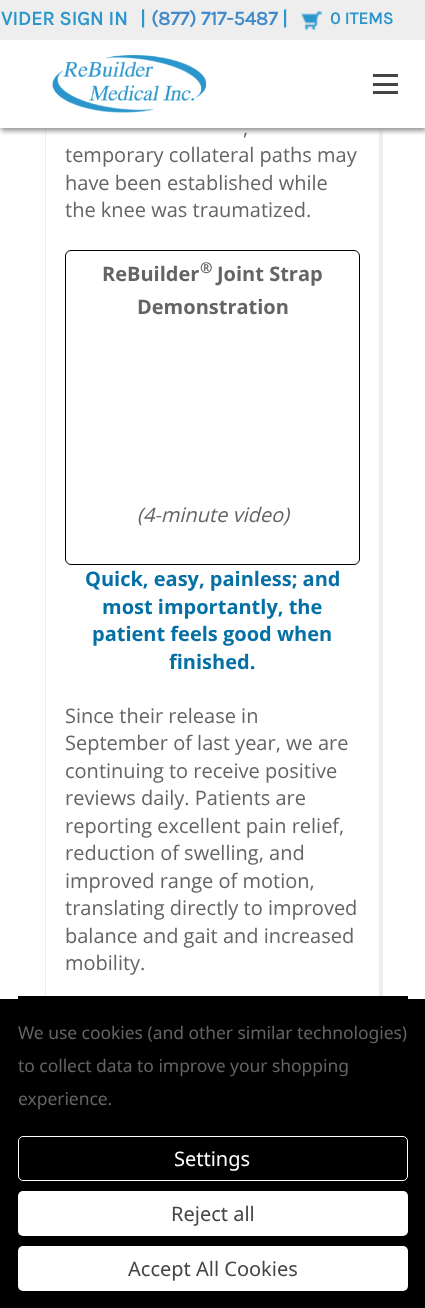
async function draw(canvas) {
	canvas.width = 425;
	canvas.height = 1308;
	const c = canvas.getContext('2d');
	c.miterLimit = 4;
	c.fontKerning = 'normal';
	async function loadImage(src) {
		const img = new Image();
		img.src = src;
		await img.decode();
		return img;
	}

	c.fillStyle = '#fff';
	c.fillRect(0, 0, 425, 1308);
	c.save();
	c.beginPath();
	c.moveTo(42, 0);
	c.lineTo(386, 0);
	c.lineTo(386, 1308);
	c.lineTo(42, 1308);
	c.closePath();
	c.moveTo(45, -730);
	c.lineTo(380, -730);
	c.lineTo(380, 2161);
	c.lineTo(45, 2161);
	c.closePath();
	c.clip('evenodd');
	c.fillStyle = '#eee';
	c.filter = 'blur(0.5px)';
	c.beginPath();
	c.rect(45, -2, 338, 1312);
	c.fill();
	c.filter = 'none';
	c.restore();
	c.strokeStyle = '#eee';
	c.strokeRect(45.5, -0.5, 334, 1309);
	c.fillStyle = '#959595';
	c.filter = 'blur(2.5px)';
	c.beginPath();
	c.rect(1, 44, 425, 87);
	c.fill();
	c.filter = 'none';
	c.fillStyle = '#eee';
	c.fillRect(0, 0, 425, 40);
	c.font = 'bold 20px Karla';
	c.fillStyle = '#2b96cc';
	c.fillText('VIDER SIGN IN', 1, 25);
	c.fillText('|', 140, 25);
	c.fillStyle = '#428bca';
	c.fillText('(877) 717-5487', 151, 25);
	c.fillStyle = '#2b96cc';
	c.fillText('|', 282, 25);
	c.drawImage(await loadImage('img1.png'), 301, 11, 22, 20);
	c.font = 'bold 17.5px Karla';
	c.fillText('0 ITEMS', 330, 24);
	c.fillStyle = '#fff';
	c.fillRect(0, 40, 425, 88);
	c.drawImage(await loadImage('img2.png'), 52, 55, 155, 58);
	for (const [x, y, w, h, color] of [
		[373, 83, 25, 3, '#444'],
		[373, 74, 25, 3, '#444'],
		[373, 91, 25, 3, '#444'],
	]) {
		c.fillStyle = color;
		c.fillRect(x, y, w, h);
	}
	c.font = '20px Open Sans';
	c.fillStyle = '#646464';
	for (const [text, x, y] of [
		[',', 243, 135],
		['temporary collateral paths may', 65, 162],
		['have been established while', 65, 190],
		['the knee was traumatized.', 65, 217],
	]) {
		c.fillText(text, x, y);
	}
	c.beginPath();
	c.roundRect(65.5, 250.5, 294, 314, 5.5);
	c.strokeStyle = '#000';
	c.stroke();
	c.font = 'bold 20px Open Sans';
	c.fillText('ReBuilder', 102, 281);
	c.font = 'bold 15px Open Sans';
	c.fillText('®', 200, 273);
	c.font = 'bold 20px Open Sans';
	c.fillText('Joint Strap', 217, 281);
	c.fillText('Demonstration', 137, 314);
	c.font = 'italic 20px Open Sans';
	c.fillText('(4-minute video)', 137, 522);
	c.font = 'bold 20px Open Sans';
	c.fillStyle = '#0570a6';
	for (const [text, x, y] of [
		['Quick, easy, painless; and', 85, 586],
		['most importantly, the', 102, 614],
		['patient feels good when', 92, 641],
		['finished.', 169, 669],
	]) {
		c.fillText(text, x, y);
	}
	c.font = '20px Open Sans';
	c.fillStyle = '#646464';
	for (const [text, x, y] of [
		['Since their release in', 65, 723],
		['September of last year, we are', 65, 750],
		['continuing to receive positive', 65, 778],
		['reviews daily. Patients are', 65, 805],
		['reporting excellent pain relief,', 65, 833],
		['reduction of swelling, and', 65, 860],
		['improved range of motion,', 65, 888],
		['translating directly to improved', 65, 915],
		['balance and gait and increased', 65, 943],
		['mobility.', 65, 970],
	]) {
		c.fillText(text, x, y);
	}
	c.fillStyle = '#000';
	c.fillRect(0, 999, 425, 309);
	c.fillRect(18, 996, 390, 3);
	c.letterSpacing = '-0.05px';
	c.font = '17.5px Noto Sans';
	c.fillStyle = '#646464';
	for (const [text, x, y] of [
		['We use cookies (and other similar technologies)', 18, 1039],
		['to collect data to improve your shopping', 18, 1072],
		['experience.', 18, 1105],
	]) {
		c.fillText(text, x, y);
	}
	c.beginPath();
	c.roundRect(18.5, 1136.5, 389, 44, 4.5);
	c.strokeStyle = '#fff';
	c.stroke();
	c.letterSpacing = '0px';
	c.font = '20px Noto Sans';
	c.fillStyle = '#fff';
	c.fillText('Settings', 174, 1166);
	c.beginPath();
	c.roundRect(18, 1191, 390, 45, 5);
	c.fill();
	c.fillStyle = '#454545';
	c.fillText('Reject all', 171, 1221);
	c.fillStyle = '#fff';
	c.beginPath();
	c.roundRect(18, 1246, 390, 45, 5);
	c.fill();
	c.fillStyle = '#454545';
	c.fillText('Accept All Cookies', 128, 1276);
}

draw(document.querySelector('canvas'));
